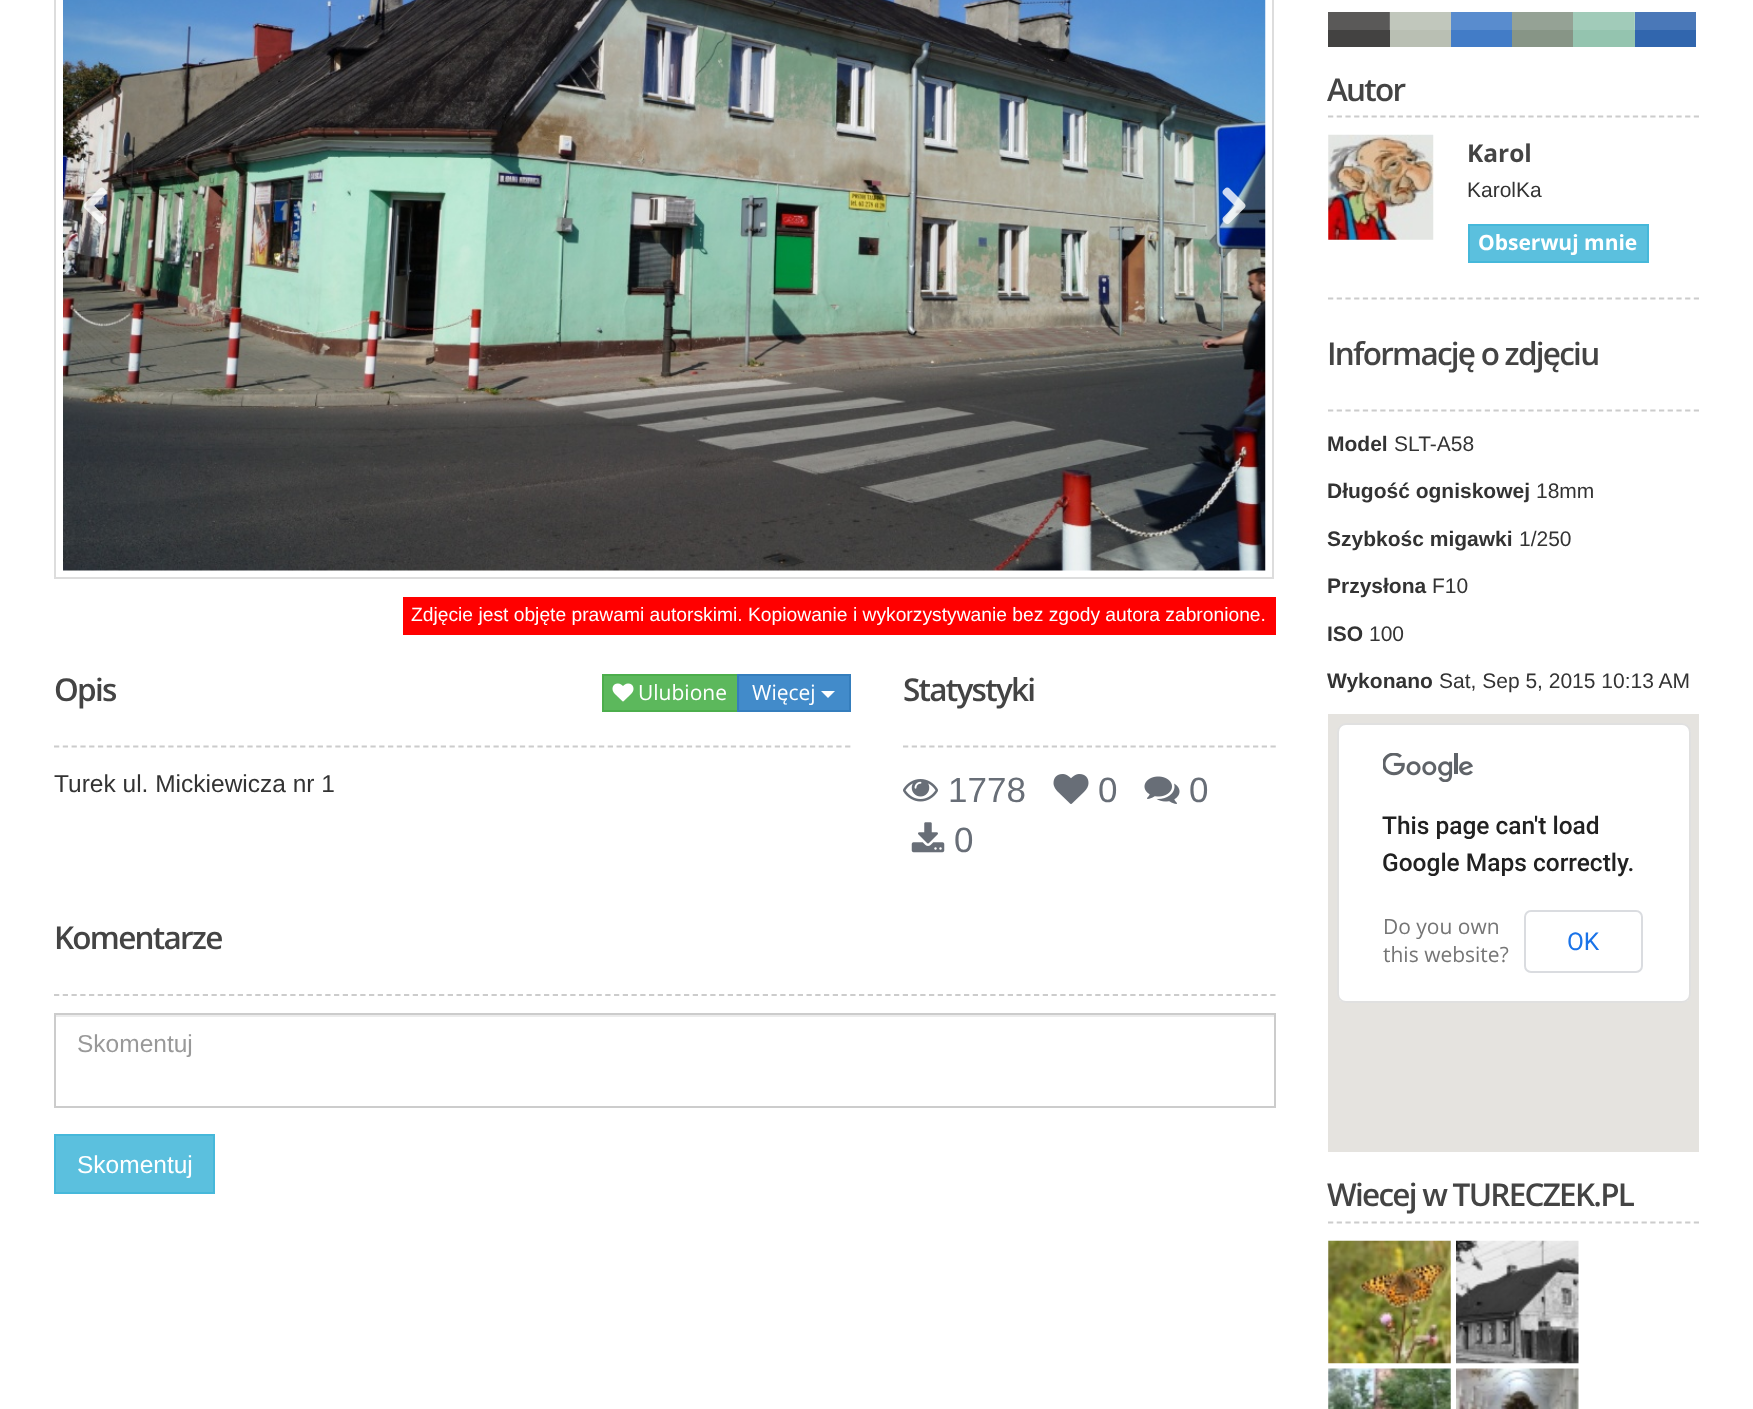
async function draw(canvas) {
	canvas.width = 1753;
	canvas.height = 1409;
	const c = canvas.getContext('2d');
	c.miterLimit = 4;
	c.fontKerning = 'normal';
	async function loadImage(src) {
		const img = new Image();
		img.src = src;
		await img.decode();
		return img;
	}

	c.fillStyle = '#fff';
	c.fillRect(0, 0, 1753, 1409);
	c.strokeStyle = '#ddd';
	c.lineWidth = 2;
	c.strokeRect(55, -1, 1218, 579);
	c.drawImage(await loadImage('img1.png'), 63, 0, 1203, 571);
	c.drawImage(await loadImage('img2.png'), 83, 187, 24, 37);
	c.drawImage(await loadImage('img3.png'), 1222, 187, 24, 37);
	c.fillStyle = '#f00';
	c.fillRect(403, 597, 873, 38);
	c.font = '19.25px Liberation Sans';
	c.fillStyle = '#fff';
	c.fillText('Zdjęcie jest objęte prawami autorskimi. Kopiowanie i wykorzystywanie bez zgody autora zabronione.', 411, 621);
	c.beginPath();
	c.moveTo(54, 746.5);
	c.lineTo(850.5, 746.5);
	c.strokeStyle = '#ccc';
	c.lineWidth = 1.8;
	c.setLineDash([5.25, 3.54]);
	c.stroke();
	c.letterSpacing = '-1.75px';
	c.font = '600 31.5px Open Sans';
	c.fillStyle = '#444';
	c.fillText('Opis', 54, 701);
	c.fillStyle = '#5cb85c';
	c.beginPath();
	c.rect(603, 675, 135, 36);
	c.fill();
	c.strokeStyle = '#4cae4c';
	c.lineWidth = 2;
	c.setLineDash([]);
	c.stroke();
	c.drawImage(await loadImage('img4.png'), 612, 683, 22, 19);
	c.letterSpacing = '0px';
	c.font = '21px Open Sans';
	c.fillStyle = '#fff';
	c.fillText('Ulubione', 638, 700);
	c.fillStyle = '#428bca';
	c.beginPath();
	c.rect(738, 675, 112, 36);
	c.fill();
	c.strokeStyle = '#357ebd';
	c.stroke();
	c.fillStyle = '#fff';
	c.fillText('Więcej', 752, 700);
	c.beginPath();
	c.moveTo(821, 691);
	c.lineTo(835, 691);
	c.lineTo(828, 698);
	c.closePath();
	c.fill();
	c.font = '24.5px Liberation Sans';
	c.fillStyle = '#333';
	c.fillText('Turek ul. Mickiewicza nr 1', 54, 792);
	c.beginPath();
	c.moveTo(903, 746.5);
	c.lineTo(1276, 746.5);
	c.strokeStyle = '#ccc';
	c.lineWidth = 1.8;
	c.setLineDash([5.25, 3.5]);
	c.stroke();
	c.letterSpacing = '-1.75px';
	c.font = '600 31.5px Open Sans';
	c.fillStyle = '#444';
	c.fillText('Statystyki', 903, 701);
	c.drawImage(await loadImage('img5.png'), 903, 779, 35, 23);
	c.letterSpacing = '0px';
	c.font = '35px Liberation Sans';
	c.fillStyle = '#686e77';
	c.fillText('1778', 948, 802);
	c.drawImage(await loadImage('img6.png'), 1053, 774, 36, 30);
	c.fillText('0', 1098, 802);
	c.drawImage(await loadImage('img7.png'), 1144, 776, 36, 28);
	c.fillText('0', 1189, 802);
	c.drawImage(await loadImage('img8.png'), 911, 822, 34, 31);
	c.fillText('0', 954, 852);
	c.beginPath();
	c.moveTo(54, 995);
	c.lineTo(1276, 995);
	c.stroke();
	c.letterSpacing = '-1.75px';
	c.font = '600 31.5px Open Sans';
	c.fillStyle = '#444';
	c.fillText('Komentarze', 54, 949);
	c.fillStyle = '#ececec';
	c.fillRect(56, 1015, 1218, 2);
	c.lineWidth = 2;
	c.setLineDash([]);
	c.strokeRect(55, 1014, 1220, 93);
	c.letterSpacing = '0px';
	c.font = '24.5px Liberation Sans';
	c.fillStyle = '#999';
	c.fillText('Skomentuj', 77, 1052);
	c.fillStyle = '#5bc0de';
	c.beginPath();
	c.rect(55, 1135, 159, 58);
	c.fill();
	c.strokeStyle = '#46b8da';
	c.stroke();
	c.fillStyle = '#fff';
	c.fillText('Skomentuj', 77, 1173);
	for (const [x, y, w, h, color] of [
		[1328, 30, 62, 17, '#434241'],
		[1328, 12, 61, 18, '#5a5958'],
		[1389, 12, 1, 18, '#6e6d6c'],
		[1390, 30, 61, 17, '#b9bfb3'],
		[1390, 12, 61, 18, '#c1c7bc'],
		[1451, 30, 61, 17, '#427cc7'],
		[1451, 12, 61, 18, '#598cce'],
		[1512, 30, 61, 17, '#879586'],
		[1512, 12, 61, 18, '#95a295'],
		[1573, 30, 62, 17, '#94c4af'],
		[1573, 12, 61, 18, '#a1cbb9'],
		[1634, 12, 1, 18, '#acd1c1'],
		[1635, 30, 61, 17, '#3166ae'],
		[1635, 12, 61, 18, '#4a78b8'],
	]) {
		c.fillStyle = color;
		c.fillRect(x, y, w, h);
	}
	c.beginPath();
	c.moveTo(1328, 116.5);
	c.lineTo(1699, 116.5);
	c.strokeStyle = '#ccc';
	c.lineWidth = 1.8;
	c.setLineDash([5.25, 3.46]);
	c.stroke();
	c.letterSpacing = '-1.75px';
	c.font = '600 31.5px Open Sans';
	c.fillStyle = '#444';
	c.fillText('Autor', 1327, 101);
	c.drawImage(await loadImage('img9.png'), 1328, 134, 106, 106);
	c.letterSpacing = '0px';
	c.font = 'bold 24.5px Open Sans';
	c.fillText('Karol', 1467, 162);
	c.font = '21px Liberation Sans';
	c.fillStyle = '#333';
	c.fillText('KarolKa', 1467, 197);
	c.fillStyle = '#5bc0de';
	c.beginPath();
	c.rect(1469, 225, 179, 37);
	c.fill();
	c.strokeStyle = '#46b8da';
	c.lineWidth = 2;
	c.setLineDash([]);
	c.stroke();
	c.font = 'bold 21px Open Sans';
	c.fillStyle = '#fff';
	c.fillText('Obserwuj mnie', 1478, 250);
	c.beginPath();
	c.moveTo(1328, 298.5);
	c.lineTo(1699, 298.5);
	c.strokeStyle = '#ccc';
	c.lineWidth = 1.8;
	c.setLineDash([5.25, 3.46]);
	c.stroke();
	c.beginPath();
	c.moveTo(1328, 410.5);
	c.lineTo(1699, 410.5);
	c.stroke();
	c.letterSpacing = '-1.75px';
	c.font = '600 31.5px Open Sans';
	c.fillStyle = '#444';
	c.fillText('Informację o zdjęciu', 1327, 365);
	c.letterSpacing = '0px';
	c.font = 'bold 21px Liberation Sans';
	c.fillStyle = '#333';
	c.fillText('Model', 1327, 451);
	c.font = '21px Liberation Sans';
	c.fillText('SLT-A58', 1394, 451);
	c.font = 'bold 21px Liberation Sans';
	c.fillText('Długość ogniskowej', 1327, 498);
	c.font = '21px Liberation Sans';
	c.fillText('18mm', 1536, 498);
	c.font = 'bold 21px Liberation Sans';
	c.fillText('Szybkośc migawki', 1327, 546);
	c.font = '21px Liberation Sans';
	c.fillText('1/250', 1519, 546);
	c.font = 'bold 21px Liberation Sans';
	c.fillText('Przysłona', 1327, 593);
	c.font = '21px Liberation Sans';
	c.fillText('F10', 1432, 593);
	c.font = 'bold 21px Liberation Sans';
	c.fillText('ISO', 1327, 641);
	c.font = '21px Liberation Sans';
	c.fillText('100', 1369, 641);
	c.font = 'bold 21px Liberation Sans';
	c.fillText('Wykonano', 1327, 688);
	c.font = '21px Liberation Sans';
	c.fillText('Sat, Sep 5, 2015 10:13 AM', 1439, 688);
	c.fillStyle = '#e5e3df';
	c.fillRect(1328, 714, 371, 438);
	c.fillStyle = '#fff';
	c.beginPath();
	c.roundRect(1337, 723, 354, 280, 9);
	c.fill();
	c.beginPath();
	c.roundRect(1338, 724, 352, 278, 8);
	c.strokeStyle = '#0000001f';
	c.lineWidth = 2;
	c.setLineDash([]);
	c.stroke();
	c.drawImage(await loadImage('img10.png'), 1383, 753, 90, 29);
	c.font = '500 24.5px Roboto';
	c.fillStyle = '#212121';
	c.fillText('This page can\'t load', 1382, 834);
	c.fillText('Google Maps correctly.', 1382, 871);
	c.font = '21px Open Sans';
	c.fillStyle = '#757575';
	c.fillText('Do you own', 1383, 934);
	c.fillText('this website?', 1383, 962);
	c.beginPath();
	c.roundRect(1525, 911, 117, 61, 6);
	c.strokeStyle = '#dadce0';
	c.stroke();
	c.font = '24.5px Roboto';
	c.fillStyle = '#1a73e8';
	c.fillText('OK', 1567, 950);
	c.beginPath();
	c.moveTo(1328, 1222.5);
	c.lineTo(1699, 1222.5);
	c.strokeStyle = '#ccc';
	c.lineWidth = 1.8;
	c.setLineDash([5.25, 3.46]);
	c.stroke();
	c.letterSpacing = '-1.75px';
	c.font = '600 31.5px Open Sans';
	c.fillStyle = '#444';
	c.fillText('Wiecej w TURECZEK.PL', 1327, 1206);
	c.drawImage(await loadImage('img11.png'), 1328, 1240, 123, 124);
	c.drawImage(await loadImage('img12.png'), 1456, 1240, 123, 124);
	c.drawImage(await loadImage('img13.png'), 1328, 1368, 123, 41);
	c.drawImage(await loadImage('img14.png'), 1456, 1368, 123, 41);
}

draw(document.querySelector('canvas'));
